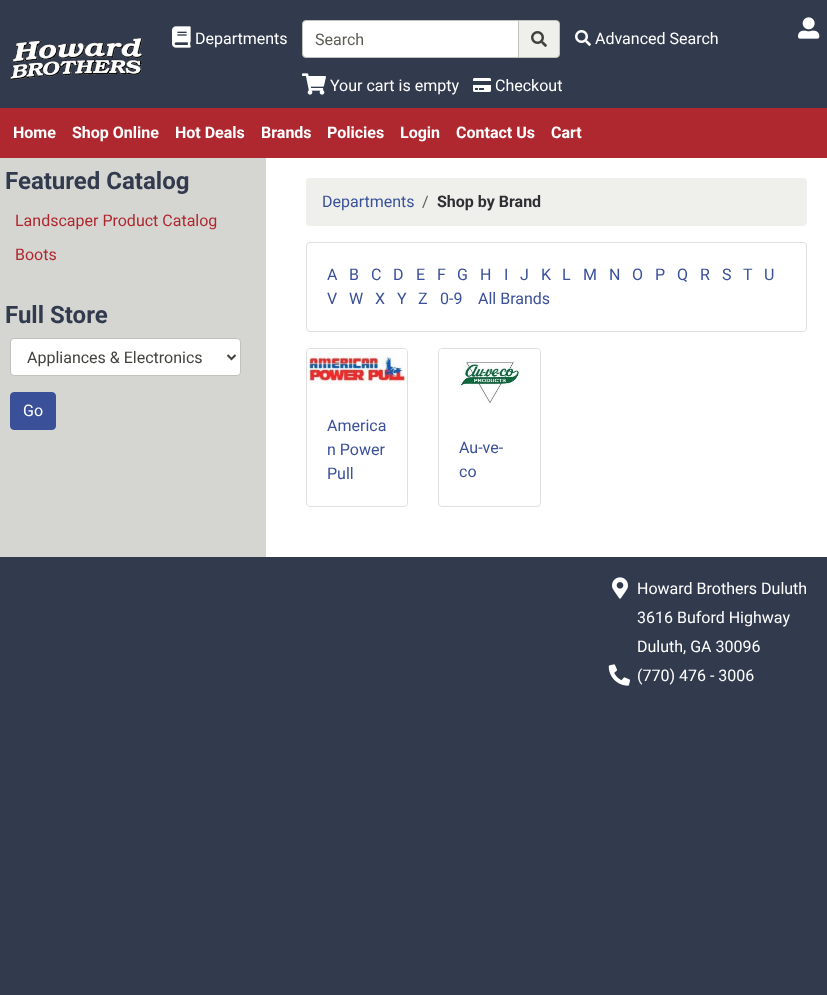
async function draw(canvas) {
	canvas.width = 827;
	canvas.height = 995;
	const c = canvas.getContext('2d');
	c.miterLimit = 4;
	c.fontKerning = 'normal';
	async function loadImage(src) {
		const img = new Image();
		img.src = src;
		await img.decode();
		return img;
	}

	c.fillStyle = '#323a4d';
	c.fillRect(0, 0, 827, 995);
	c.fillStyle = '#fff';
	c.fillRect(266, 158, 561, 399);
	c.drawImage(await loadImage('img1.png'), 10, 38, 133, 42);
	c.drawImage(await loadImage('img2.png'), 798, 17, 22, 22);
	c.drawImage(await loadImage('img3.png'), 172, 26, 19, 22);
	c.font = '16px Roboto';
	c.fillText('Departments', 195, 44);
	c.beginPath();
	c.roundRect(302.5, 20.5, 216, 37, [3.5, 0, 0, 3.5]);
	c.fill();
	c.strokeStyle = '#c1c2bc';
	c.stroke();
	c.fillStyle = '#5b5d55';
	c.fillText('Search', 315, 45);
	c.fillStyle = '#eff0ec';
	c.beginPath();
	c.roundRect(518.5, 20.5, 41, 37, [0, 3.5, 3.5, 0]);
	c.fill();
	c.stroke();
	c.drawImage(await loadImage('img4.png'), 531, 31, 16, 16);
	c.drawImage(await loadImage('img5.png'), 575, 30, 16, 16);
	c.fillStyle = '#fff';
	c.fillText('Advanced Search', 595, 44);
	c.drawImage(await loadImage('img6.png'), 302, 73, 24, 22);
	c.fillText('Your cart is empty', 330, 91);
	c.drawImage(await loadImage('img7.png'), 473, 78, 18, 14);
	c.fillText('Checkout', 495, 91);
	c.fillStyle = '#af272f';
	c.fillRect(0, 108, 827, 50);
	c.font = 'bold 16px Roboto';
	c.fillStyle = '#fff';
	for (const [text, x, y] of [
		['Home', 13, 138],
		['Shop Online', 72, 138],
		['Hot Deals', 175, 138],
		['Brands', 261, 138],
		['Policies', 327, 138],
		['Login', 400, 138],
		['Contact Us', 456, 138],
		['Cart', 551, 138],
	]) {
		c.fillText(text, x, y);
	}
	c.fillStyle = '#d5d6d2';
	c.fillRect(0, 158, 266, 399);
	c.font = 'bold 24px Roboto';
	c.fillStyle = '#323a4d';
	c.fillText('Featured Catalog', 5, 189);
	c.font = '16px Roboto';
	c.fillStyle = '#af272f';
	c.fillText('Landscaper Product Catalog', 15, 226);
	c.fillText('Boots', 15, 260);
	c.font = 'bold 24px Roboto';
	c.fillStyle = '#323a4d';
	c.fillText('Full Store', 5, 323);
	c.fillStyle = '#fff';
	c.beginPath();
	c.roundRect(10.5, 338.5, 230, 37, 3.5);
	c.fill();
	c.stroke();
	c.beginPath();
	c.moveTo(227.5, 355);
	c.lineTo(231.5, 359);
	c.lineTo(235.5, 355);
	c.strokeStyle = '#41433d';
	c.lineWidth = 2;
	c.stroke();
	c.font = '16px Roboto';
	c.fillStyle = '#41433d';
	c.fillText('Appliances & Electronics', 27, 363);
	c.fillStyle = '#3a5199';
	c.beginPath();
	c.roundRect(10.5, 392.5, 45, 37, 3.5);
	c.fill();
	c.strokeStyle = '#3a5199';
	c.lineWidth = 1;
	c.stroke();
	c.fillStyle = '#fff';
	c.fillText('Go', 23, 416);
	c.fillStyle = '#eff0ec';
	c.beginPath();
	c.roundRect(306, 178, 501, 48, 4);
	c.fill();
	c.fillStyle = '#3a5199';
	c.fillText('Departments', 322, 207);
	c.fillStyle = '#5b5d55';
	c.fillText('/', 422, 207);
	c.font = 'bold 16px Roboto';
	c.fillStyle = '#2f2e33';
	c.fillText('Shop by Brand', 437, 207);
	c.beginPath();
	c.roundRect(306.5, 242.5, 500, 89, 3.5);
	c.strokeStyle = '#dfdfdf';
	c.stroke();
	c.font = '16px Roboto';
	c.fillStyle = '#3a5199';
	for (const [text, x, y] of [
		['A', 327, 280],
		['B', 349, 280],
		['C', 371, 280],
		['D', 393, 280],
		['E', 416, 280],
		['F', 437, 280],
		['G', 457, 280],
		['H', 480, 280],
		['I', 504, 280],
		['J', 520, 280],
		['K', 541, 280],
		['L', 562, 280],
		['M', 583, 280],
		['N', 609, 280],
		['O', 632, 280],
		['P', 655, 280],
		['Q', 677, 280],
		['R', 700, 280],
		['S', 722, 280],
		['T', 743, 280],
		['U', 764, 280],
		['V', 327, 304],
		['W', 349, 304],
		['X', 375, 304],
		['Y', 397, 304],
		['Z', 418, 304],
		['0-9', 440, 304],
		['All Brands', 478, 304],
	]) {
		c.fillText(text, x, y);
	}
	c.beginPath();
	c.roundRect(306.5, 348.5, 101, 158, 3.5);
	c.stroke();
	c.drawImage(await loadImage('img8.png'), 307, 349, 100, 35);
	for (const [text, x, y] of [
		['America', 327, 431],
		['n Power', 327, 455],
		['Pull', 327, 479],
	]) {
		c.fillText(text, x, y);
	}
	c.beginPath();
	c.roundRect(438.5, 348.5, 102, 158, 3.5);
	c.stroke();
	c.drawImage(await loadImage('img9.png'), 439, 349, 101, 56);
	c.fillText('Au-ve-', 459, 453);
	c.fillText('co', 459, 477);
	c.drawImage(await loadImage('img10.png'), 612, 577, 16, 22);
	c.fillStyle = '#fff';
	for (const [text, x, y] of [
		['Howard Brothers Duluth', 637, 594],
		['3616 Buford Highway', 637, 623],
		['Duluth, GA 30096', 637, 652],
	]) {
		c.fillText(text, x, y);
	}
	c.drawImage(await loadImage('img11.png'), 608, 664, 22, 22);
	c.fillText('(770) 476 - 3006', 637, 681);
}

draw(document.querySelector('canvas'));
